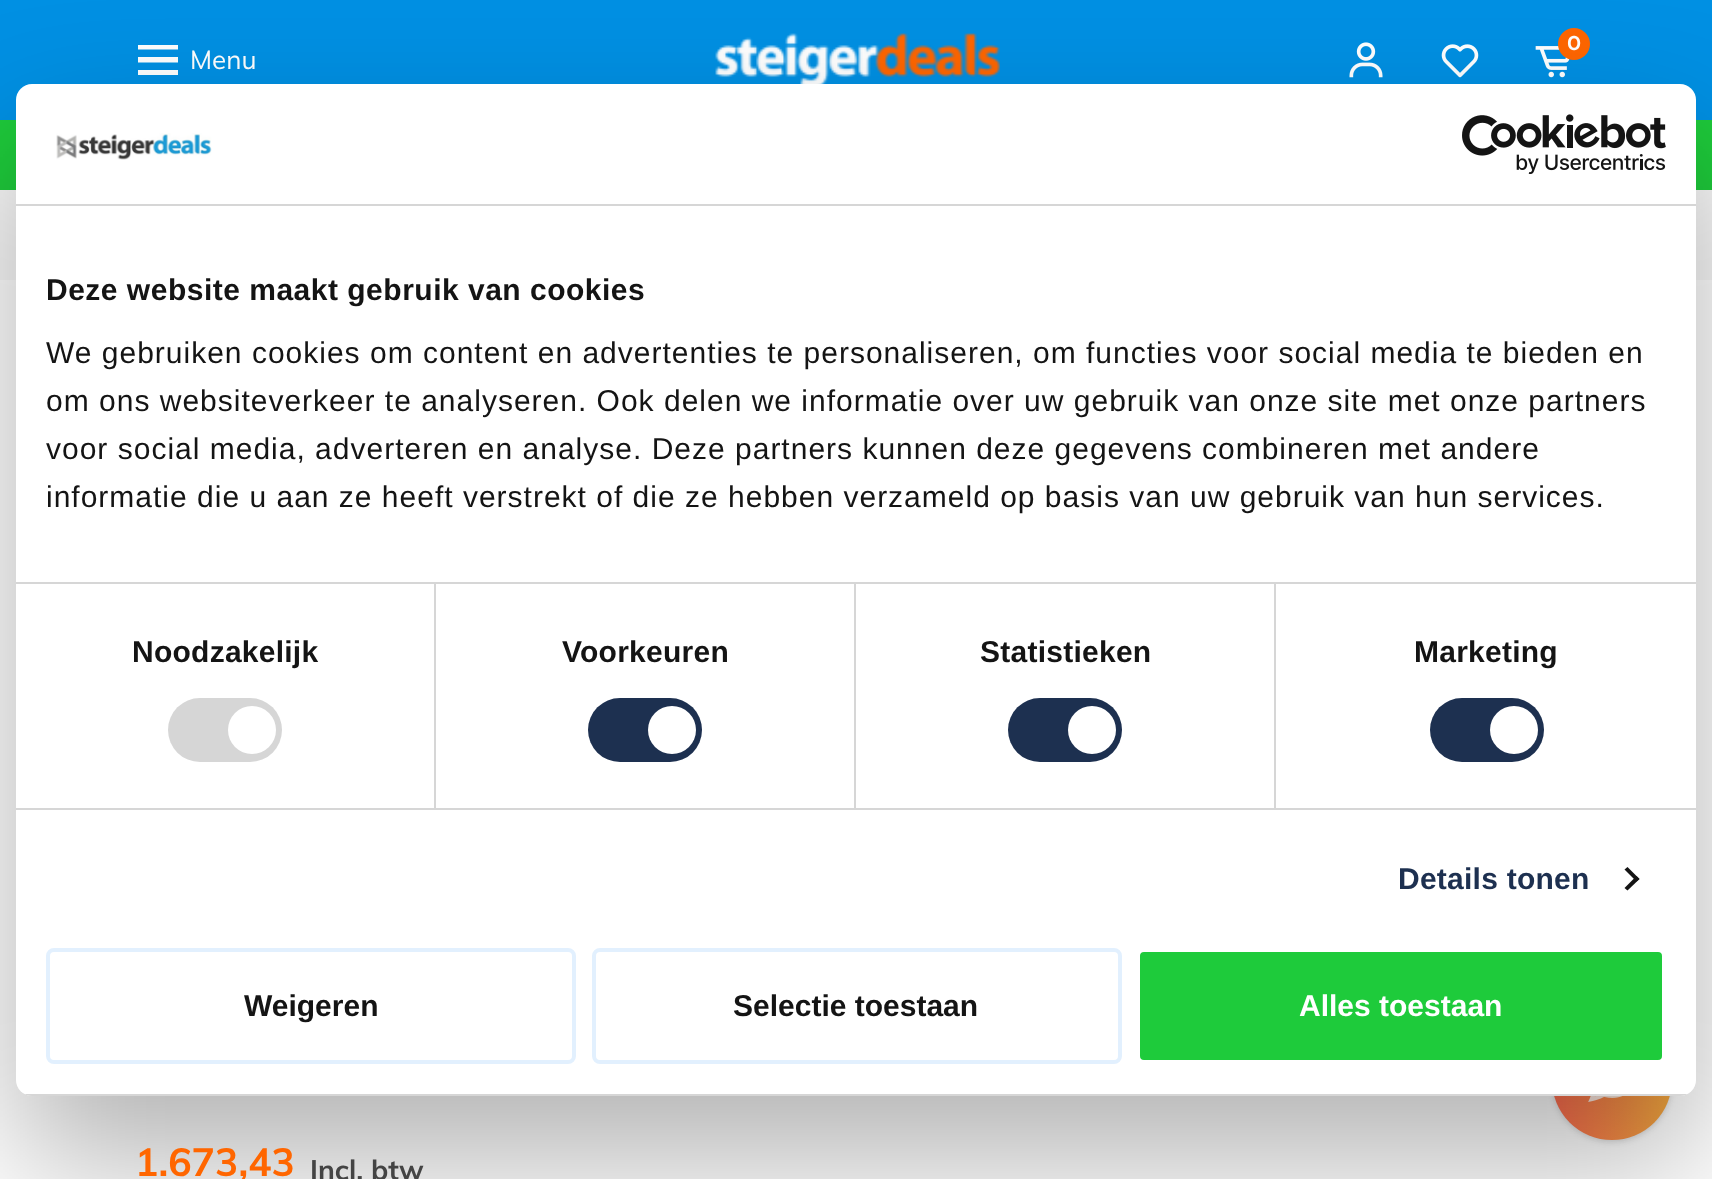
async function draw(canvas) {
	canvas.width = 1712;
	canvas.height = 1179;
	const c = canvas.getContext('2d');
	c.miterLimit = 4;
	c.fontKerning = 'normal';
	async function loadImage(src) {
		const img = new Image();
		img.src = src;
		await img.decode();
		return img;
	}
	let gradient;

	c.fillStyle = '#fff';
	c.fillRect(0, 0, 1712, 1179);
	c.fillStyle = '#0090e3';
	c.fillRect(0, 0, 1712, 120);
	c.drawImage(await loadImage('img1.png'), 715, 33, 285, 51);
	c.drawImage(await loadImage('img2.png'), 1349, 42, 34, 36);
	c.drawImage(await loadImage('img3.png'), 1441, 44, 38, 34);
	c.drawImage(await loadImage('img4.png'), 1535, 46, 35, 32);
	c.fillStyle = '#f60';
	c.beginPath();
	c.arc(1574, 44, 16, 0, 2 * Math.PI);
	c.fill();
	c.font = 'bold 20px DM Sans';
	c.fillStyle = '#fff';
	c.fillText('0', 1567, 50);
	c.beginPath();
	c.moveTo(138, 45);
	c.lineTo(178, 45);
	c.lineTo(178, 49.5);
	c.lineTo(138, 49.5);
	c.closePath();
	c.moveTo(138, 57);
	c.lineTo(178, 57);
	c.lineTo(178, 62.5);
	c.lineTo(138, 62.5);
	c.closePath();
	c.moveTo(138, 70);
	c.lineTo(178, 70);
	c.lineTo(178, 75);
	c.lineTo(138, 75);
	c.closePath();
	c.fill();
	c.font = '26px Muli';
	c.fillText('Menu', 190, 69);
	c.fillStyle = '#1ecb3b';
	c.fillRect(0, 120, 1712, 70);
	c.fillStyle = '#f9f9f9';
	c.fillRect(0, 190, 1712, 90);
	c.fillStyle = '#2929290f';
	c.filter = 'blur(2px)';
	c.beginPath();
	c.roundRect(1552, 1022, 120, 120, 60);
	c.fill();
	c.filter = 'none';
	c.fillStyle = '#2929291a';
	c.filter = 'blur(3px)';
	c.beginPath();
	c.roundRect(1552, 1022, 120, 120, 60);
	c.fill();
	c.filter = 'none';
	gradient = c.createLinearGradient(1552, 1080, 1672, 1080);
	gradient.addColorStop(0, '#ff6d50');
	gradient.addColorStop(1, '#f2a83e');
	c.fillStyle = gradient;
	c.beginPath();
	c.arc(1612, 1080, 60, 0, 2 * Math.PI);
	c.fill();
	c.drawImage(await loadImage('img7.png'), 1588, 1096, 35, 6);
	c.fillStyle = '#0000004d';
	c.filter = 'blur(68px)';
	c.beginPath();
	c.roundRect(16, 148, 1680, 1012, 16);
	c.fill();
	c.filter = 'none';
	c.fillStyle = '#fff';
	c.beginPath();
	c.roundRect(16, 84, 1680, 1012, 16);
	c.fill();
	c.fillStyle = '#d6d6d6';
	c.fillRect(16, 204, 1680, 2);
	c.drawImage(await loadImage('img5.png'), 56, 133, 156, 27);
	c.drawImage(await loadImage('img6.png'), 1462, 114, 204, 60);
	c.fillRect(16, 582, 1680, 2);
	c.letterSpacing = '0.5px';
	c.font = 'bold 30px Liberation Sans';
	c.fillStyle = '#141414';
	c.fillText('Deze website maakt gebruik van cookies', 46, 300);
	c.letterSpacing = '1px';
	c.font = '30px Liberation Sans';
	for (const [text, x, y] of [
		['We gebruiken cookies om content en advertenties te personaliseren, om functies voor social media te bieden en', 46, 363],
		['om ons websiteverkeer te analyseren. Ook delen we informatie over uw gebruik van onze site met onze partners', 46, 411],
		['voor social media, adverteren en analyse. Deze partners kunnen deze gegevens combineren met andere', 46, 459],
		['informatie die u aan ze heeft verstrekt of die ze hebben verzameld op basis van uw gebruik van hun services.', 46, 507],
	]) {
		c.fillText(text, x, y);
	}
	c.fillStyle = '#d6d6d6';
	c.fillRect(16, 808, 1680, 2);
	c.fillRect(434, 584, 2, 224);
	c.letterSpacing = '0.25px';
	c.font = 'bold 30px Liberation Sans';
	c.fillStyle = '#141414';
	c.fillText('Noodzakelijk', 132, 662);
	c.fillStyle = '#d6d6d6';
	c.beginPath();
	c.roundRect(168, 698, 114, 64, 32);
	c.fill();
	c.fillStyle = '#fff';
	c.beginPath();
	c.arc(252, 730, 24, 0, 2 * Math.PI);
	c.fill();
	c.fillStyle = '#d6d6d6';
	c.fillRect(854, 584, 2, 224);
	c.fillStyle = '#141414';
	c.fillText('Voorkeuren', 562, 662);
	c.fillStyle = '#1d3050';
	c.beginPath();
	c.roundRect(588, 698, 114, 64, 32);
	c.fill();
	c.fillStyle = '#fff';
	c.beginPath();
	c.arc(672, 730, 24, 0, 2 * Math.PI);
	c.fill();
	c.fillStyle = '#d6d6d6';
	c.fillRect(1274, 584, 2, 224);
	c.fillStyle = '#141414';
	c.fillText('Statistieken', 980, 662);
	c.fillStyle = '#1d3050';
	c.beginPath();
	c.roundRect(1008, 698, 114, 64, 32);
	c.fill();
	c.fillStyle = '#fff';
	c.beginPath();
	c.arc(1092, 730, 24, 0, 2 * Math.PI);
	c.fill();
	c.fillStyle = '#141414';
	c.fillText('Marketing', 1414, 662);
	c.fillStyle = '#1d3050';
	c.beginPath();
	c.roundRect(1430, 698, 114, 64, 32);
	c.fill();
	c.fillStyle = '#fff';
	c.beginPath();
	c.arc(1514, 730, 24, 0, 2 * Math.PI);
	c.fill();
	c.fillStyle = '#1d3050';
	c.fillText('Details tonen', 1398, 889);
	c.fillStyle = '#141414';
	c.beginPath();
	c.moveTo(1627.5, 867);
	c.lineTo(1639.5, 879);
	c.lineTo(1636.5, 881.5);
	c.lineTo(1624.5, 869.5);
	c.closePath();
	c.fill();
	c.beginPath();
	c.moveTo(1636.5, 876);
	c.lineTo(1639.5, 879);
	c.lineTo(1627.5, 890.5);
	c.lineTo(1624.5, 888);
	c.closePath();
	c.fill();
	c.save();
	c.beginPath();
	c.roundRect(16, 84, 1680, 1012, 16);
	c.clip();
	c.fillStyle = '#d6d6d6';
	c.fillRect(16, 1094, 1680, 2);
	c.restore();
	c.beginPath();
	c.roundRect(48, 950, 526, 112, 6);
	c.strokeStyle = '#e2f0fe';
	c.lineWidth = 4;
	c.stroke();
	c.letterSpacing = '0px';
	c.fillText('Weigeren', 244, 1016);
	c.beginPath();
	c.roundRect(594, 950, 526, 112, 6);
	c.stroke();
	c.fillText('Selectie toestaan', 733, 1016);
	c.fillStyle = '#1ecb3b';
	c.beginPath();
	c.roundRect(1138, 950, 526, 112, 6);
	c.fill();
	c.strokeStyle = '#fff';
	c.stroke();
	c.fillStyle = '#fff';
	c.fillText('Alles toestaan', 1299, 1016);
	c.font = 'bold 39px Muli';
	c.fillStyle = '#f60';
	c.fillText('1.673,43', 135, 1176);
	c.font = 'bold 28px Muli';
	c.fillStyle = '#444';
	c.fillText('Incl. btw', 310, 1180);
}

draw(document.querySelector('canvas'));
